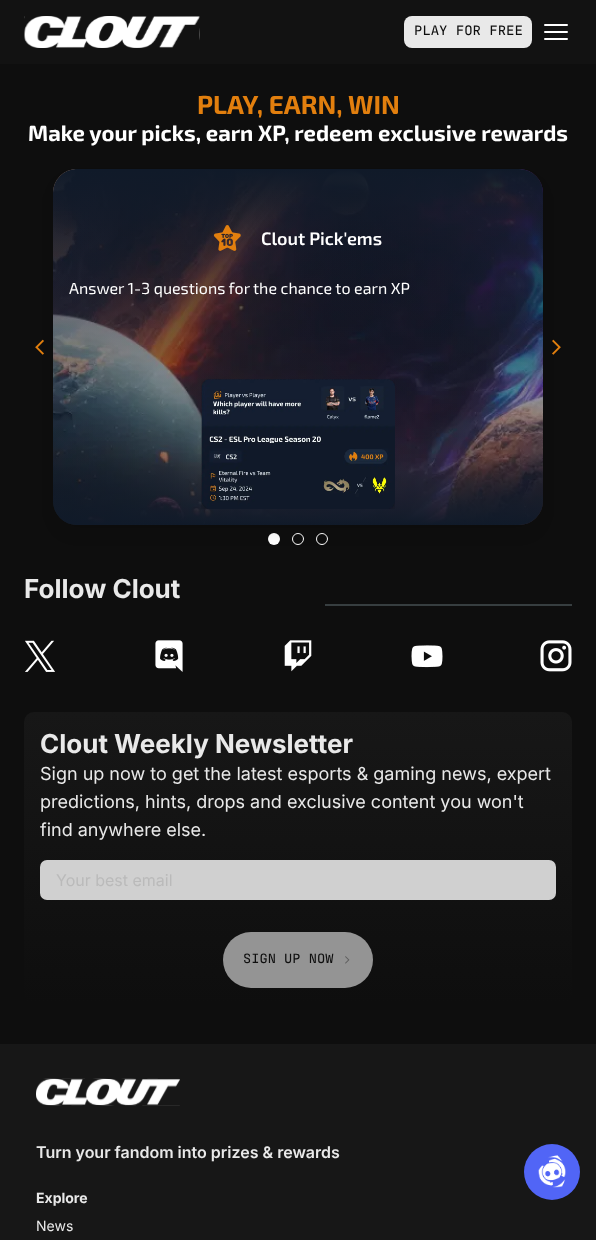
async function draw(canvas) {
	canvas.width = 596;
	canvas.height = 1240;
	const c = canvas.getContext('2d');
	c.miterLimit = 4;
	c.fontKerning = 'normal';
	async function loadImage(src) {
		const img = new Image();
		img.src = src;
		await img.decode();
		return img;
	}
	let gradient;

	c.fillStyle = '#0e0e0e';
	c.fillRect(0, 0, 596, 1240);
	c.fillStyle = '#121212';
	c.fillRect(0, 0, 596, 64);
	c.drawImage(await loadImage('img1.png'), 24, 16, 176, 32);
	c.fillStyle = '#e9e9e9';
	c.beginPath();
	c.roundRect(404, 16, 128, 32, 8);
	c.fill();
	c.font = '500 14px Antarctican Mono';
	c.fillStyle = '#0e0e0e';
	c.fillText('PLAY FOR FREE', 414, 35);
	c.beginPath();
	c.moveTo(545, 25);
	c.lineTo(567, 25);
	c.moveTo(545, 32);
	c.lineTo(567, 32);
	c.moveTo(545, 39);
	c.lineTo(567, 39);
	c.strokeStyle = '#fff';
	c.lineWidth = 2;
	c.lineCap = 'round';
	c.lineJoin = 'round';
	c.stroke();
	c.font = 'bold 26px "Exo 2"';
	c.fillStyle = '#e27f0e';
	c.fillText('PLAY, EARN, WIN', 197, 114);
	c.font = 'bold 22px "Exo 2"';
	c.fillStyle = '#fff';
	c.fillText('Make your picks, earn XP, redeem exclusive rewards', 28, 141);
	c.drawImage(await loadImage('img5.png'), 35, 339, 9, 16);
	c.drawImage(await loadImage('img6.png'), 552, 339, 9, 16);
	c.beginPath();
	c.arc(274, 539, 6, 0, 2 * Math.PI);
	c.fill();
	c.beginPath();
	c.arc(298, 539, 5.5, 0, 2 * Math.PI);
	c.lineWidth = 1;
	c.stroke();
	c.beginPath();
	c.arc(322, 539, 5.5, 0, 2 * Math.PI);
	c.stroke();
	c.fillStyle = '#0000001a';
	c.filter = 'blur(7.5px)';
	c.beginPath();
	c.roundRect(56, 182, 484, 350, 21);
	c.fill();
	c.filter = 'none';
	c.drawImage(await loadImage('img2.png'), 53, 169, 490, 356);
	gradient = c.createLinearGradient(298, 169, 298, 525);
	gradient.addColorStop(0, '#101a29');
	gradient.addColorStop(0.6, '#101a294d');
	gradient.addColorStop(1, '#101a2900');
	c.fillStyle = gradient;
	c.beginPath();
	c.roundRect(53, 169, 490, 356, 24);
	c.fill();
	gradient = c.createLinearGradient(298, 525, 298, 169);
	gradient.addColorStop(0, '#101a29');
	gradient.addColorStop(0.2, '#101a294d');
	gradient.addColorStop(1, '#101a2900');
	c.fillStyle = gradient;
	c.beginPath();
	c.roundRect(53, 169, 490, 356, 24);
	c.fill();
	c.drawImage(await loadImage('img3.png'), 213, 225, 28, 26);
	c.font = '600 18px "Exo 2"';
	c.fillStyle = '#fff';
	c.fillText('Clout Pick\'ems', 261, 245);
	c.font = '16px "Exo 2"';
	c.fillText('Answer 1-3 questions for the chance to earn XP', 69, 294);
	c.drawImage(await loadImage('img4.png'), 201, 379, 194, 130);
	c.font = 'bold 26px Inter';
	c.fillStyle = '#e9e9e9';
	c.fillText('Follow Clout', 24, 598);
	c.fillStyle = '#373e40';
	c.fillRect(325, 604, 247, 2);
	c.drawImage(await loadImage('img7.png'), 25, 640, 30, 32);
	c.drawImage(await loadImage('img8.png'), 155, 640, 28, 32);
	c.drawImage(await loadImage('img9.png'), 284, 640, 28, 32);
	c.drawImage(await loadImage('img10.png'), 411, 645, 32, 23);
	c.drawImage(await loadImage('img11.png'), 540, 640, 32, 32);
	gradient = c.createLinearGradient(298, 712, 298, 1004);
	gradient.addColorStop(0, '#171717');
	gradient.addColorStop(1, '#0e0e0e');
	c.fillStyle = gradient;
	c.beginPath();
	c.roundRect(24, 712, 548, 292, 10);
	c.fill();
	c.fillStyle = '#e9e9e9';
	c.fillText('Clout Weekly Newsletter', 40, 753);
	c.font = '18px Inter';
	for (const [text, x, y] of [
		['Sign up now to get the latest esports & gaming news, expert', 40, 780],
		['predictions, hints, drops and exclusive content you won\'t', 40, 808],
		['find anywhere else.', 40, 836],
	]) {
		c.fillText(text, x, y);
	}
	c.fillStyle = '#d0d0d0';
	c.beginPath();
	c.roundRect(40, 860, 516, 40, 7);
	c.fill();
	c.font = '16px Inter';
	c.fillStyle = '#bababa';
	c.fillText('Your best email', 56, 886);
	c.fillStyle = '#949494';
	c.beginPath();
	c.roundRect(223, 932, 150, 56, 28);
	c.fill();
	c.font = '500 13.75px Antarctican Mono';
	c.fillStyle = '#0e0e0e';
	c.fillText('SIGN UP NOW', 243, 963);
	c.drawImage(await loadImage('img12.png'), 345, 956, 5, 8);
	c.fillStyle = '#171717';
	c.fillRect(0, 1044, 596, 196);
	c.drawImage(await loadImage('img13.png'), 36, 1078, 144, 28);
	c.font = '600 16px Inter';
	c.fillStyle = '#e9e9e9';
	c.fillText('Turn your fandom into prizes & rewards', 36, 1158);
	c.font = 'bold 14px Inter';
	c.fillText('Explore', 36, 1203);
	c.font = '14px Inter';
	c.fillText('News', 36, 1231);
	c.drawImage(await loadImage('img14.png'), 524, 1144, 56, 56);
}

draw(document.querySelector('canvas'));
